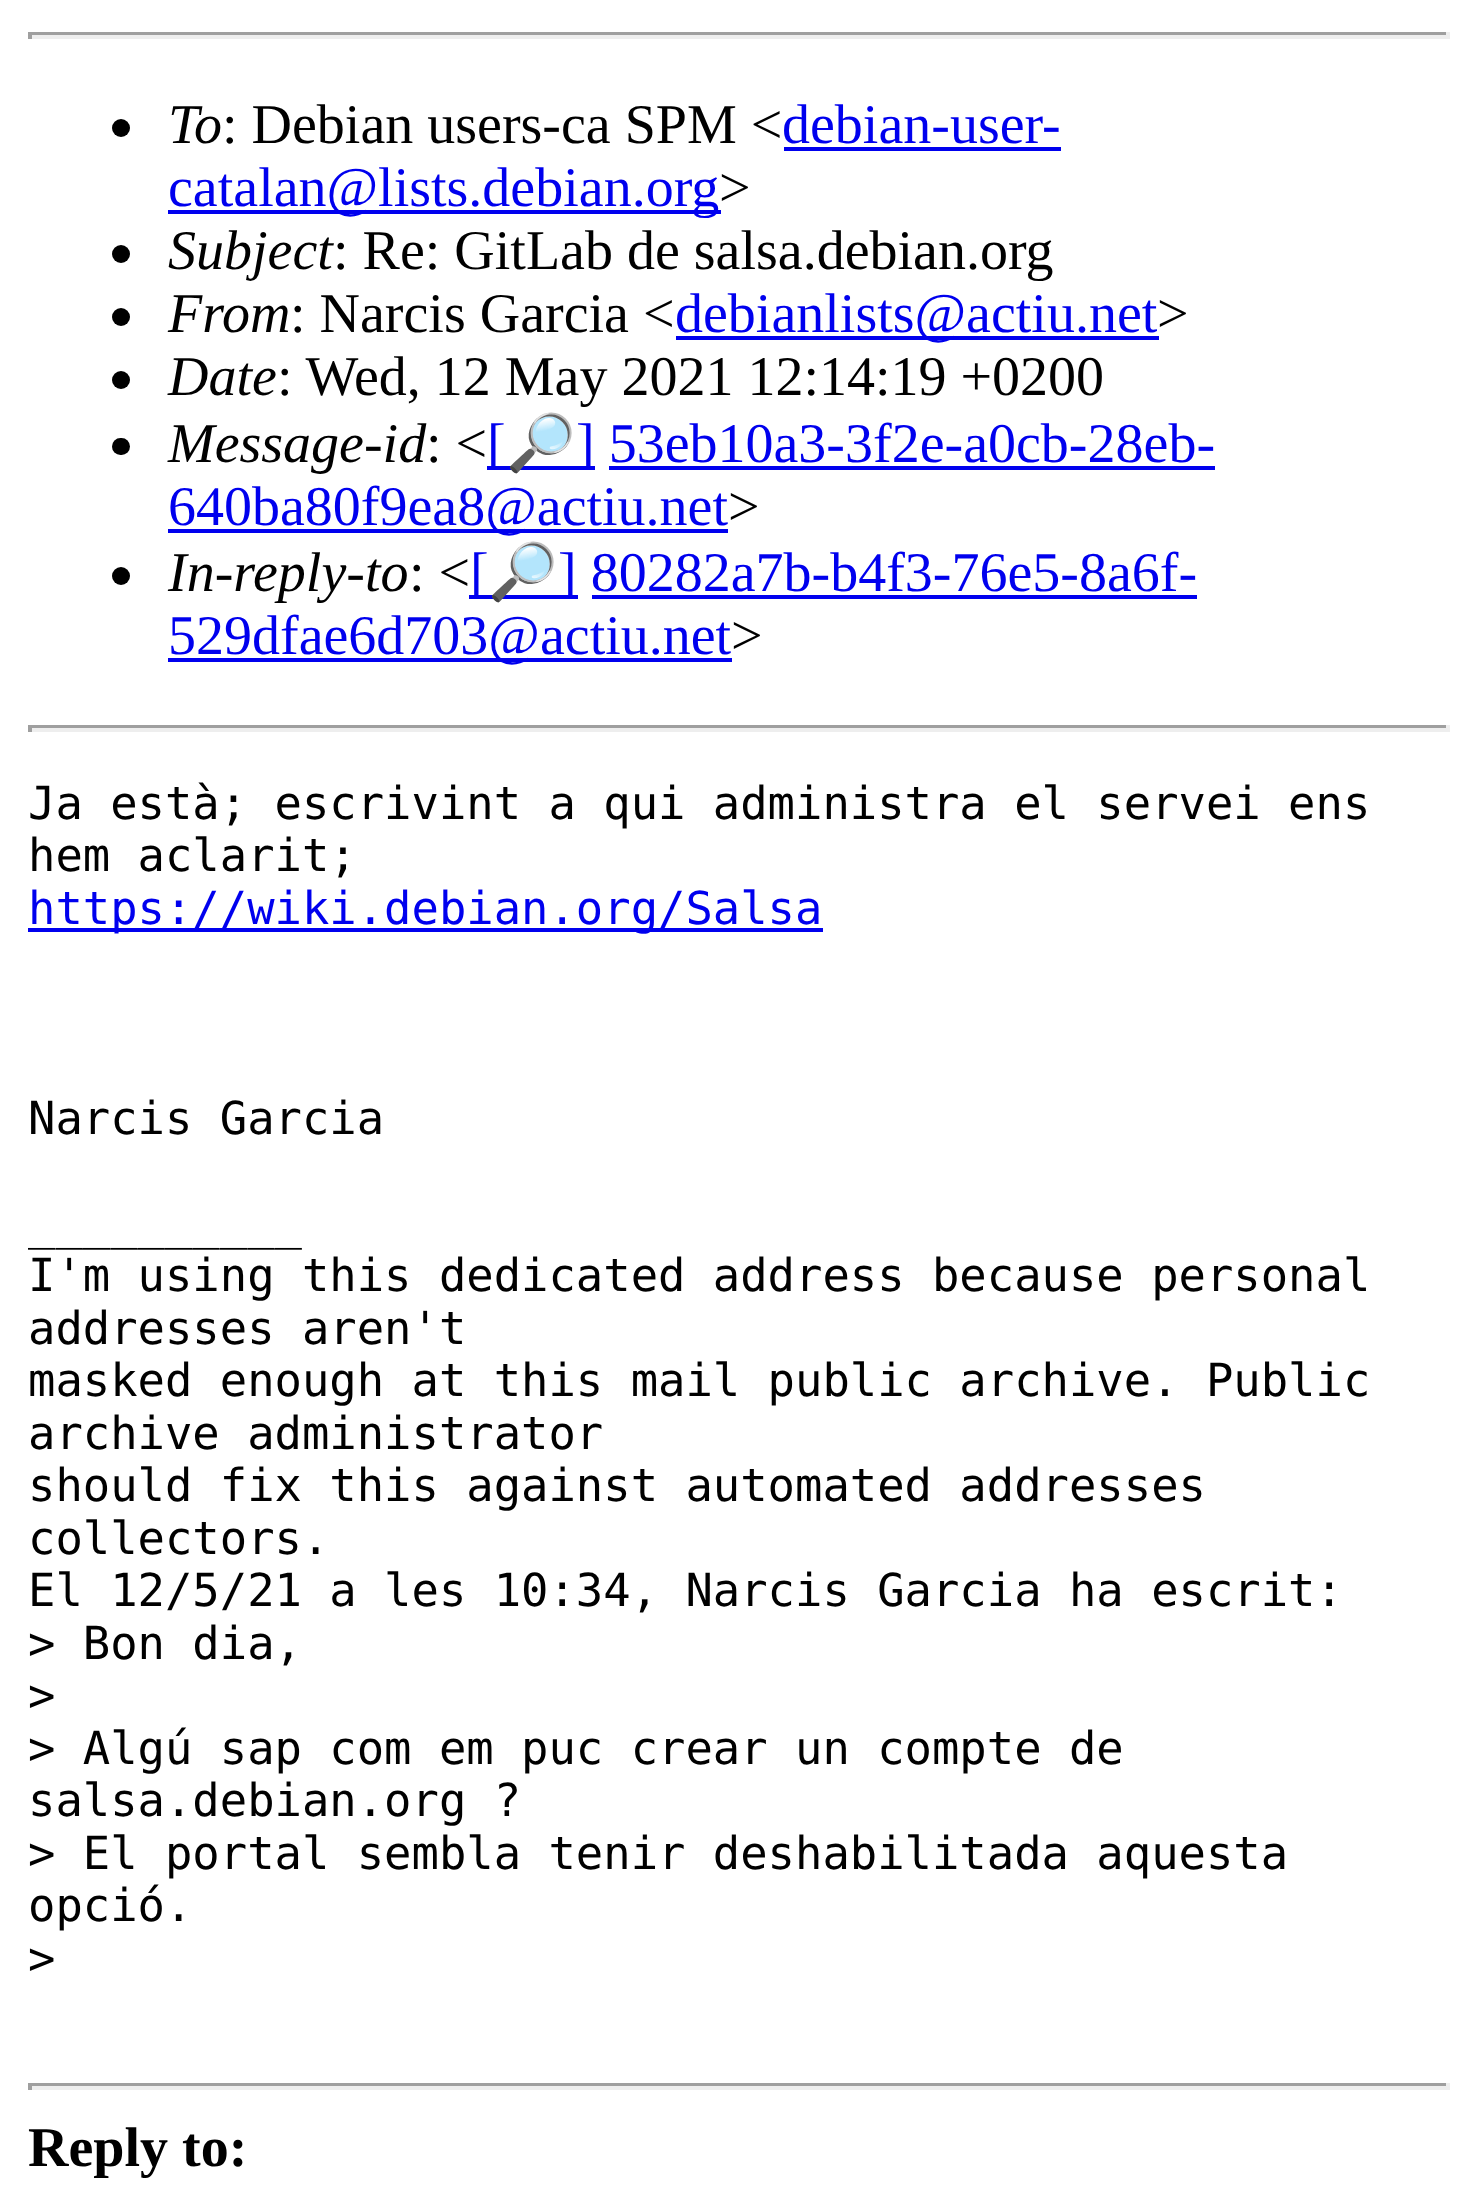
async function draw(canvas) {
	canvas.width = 1477;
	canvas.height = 2212;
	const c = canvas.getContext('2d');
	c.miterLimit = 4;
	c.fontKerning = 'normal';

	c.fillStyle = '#fff';
	c.fillRect(0, 0, 1477, 2212);
	for (const [x, y, w, h, color] of [
		[28, 32, 1421, 3, '#9f9f9f'],
		[1446, 32, 4, 7, '#eee'],
		[28, 35, 1421, 4, '#eee'],
		[28, 32, 4, 7, '#9f9f9f'],
	]) {
		c.fillStyle = color;
		c.fillRect(x, y, w, h);
	}
	c.fillStyle = '#000';
	c.beginPath();
	c.arc(121, 128, 9, 0, 2 * Math.PI);
	c.fill();
	c.font = 'italic 56px Liberation Serif';
	c.fillText('To', 168, 143);
	c.font = '56px Liberation Serif';
	c.fillText(': Debian users-ca SPM <', 222, 143);
	c.fillStyle = '#00e';
	c.fillText('debian-user-', 782, 143);
	c.fillRect(784, 147, 277, 4);
	c.fillRect(168, 210, 553, 4);
	c.fillText('catalan@lists.debian.org', 168, 206);
	c.fillStyle = '#000';
	c.fillText('>', 719, 206);
	c.beginPath();
	c.arc(121, 254, 9, 0, 2 * Math.PI);
	c.fill();
	c.font = 'italic 56px Liberation Serif';
	c.fillText('Subject', 168, 269);
	c.font = '56px Liberation Serif';
	c.fillText(': Re: GitLab de salsa.debian.org', 333, 269);
	c.beginPath();
	c.arc(121, 317, 9, 0, 2 * Math.PI);
	c.fill();
	c.font = 'italic 56px Liberation Serif';
	c.fillText('From', 168, 332);
	c.font = '56px Liberation Serif';
	c.fillText(': Narcis Garcia <', 290, 332);
	c.fillStyle = '#00e';
	c.fillRect(676, 336, 483, 4);
	c.fillText('debianlists@actiu.net', 675, 332);
	c.fillStyle = '#000';
	c.fillText('>', 1157, 332);
	c.beginPath();
	c.arc(121, 380, 9, 0, 2 * Math.PI);
	c.fill();
	c.font = 'italic 56px Liberation Serif';
	c.fillText('Date', 168, 395);
	c.font = '56px Liberation Serif';
	c.fillText(': Wed, 12 May 2021 12:14:19 +0200', 277, 395);
	c.beginPath();
	c.roundRect(112, 438, 18, 17, 8.5);
	c.fill();
	c.font = 'italic 56px Liberation Serif';
	c.fillText('Message-id', 168, 462);
	c.font = '56px Liberation Serif';
	c.fillText(': <', 426, 462);
	c.fillStyle = '#00e';
	c.fillRect(487, 466, 108, 4);
	c.fillText('[', 487, 462);
	c.font = '56px Noto Color Emoji';
	c.fillText('🔎', 506, 462);
	c.font = '56px Liberation Serif';
	c.fillText('] 53eb10a3-3f2e-a0cb-28eb-', 576, 462);
	c.fillRect(168, 529, 560, 4);
	c.fillText('640ba80f9ea8@actiu.net', 168, 525);
	c.fillRect(609, 466, 606, 4);
	c.fillStyle = '#000';
	c.fillText('>', 728, 525);
	c.beginPath();
	c.arc(121, 576, 9, 0, 2 * Math.PI);
	c.fill();
	c.font = 'italic 56px Liberation Serif';
	c.fillText('In-reply-to', 168, 591);
	c.font = '56px Liberation Serif';
	c.fillText(': <', 409, 591);
	c.fillStyle = '#00e';
	c.fillRect(469, 595, 109, 4);
	c.fillText('[', 470, 591);
	c.font = '56px Noto Color Emoji';
	c.fillText('🔎', 488, 591);
	c.font = '56px Liberation Serif';
	c.fillText('] 80282a7b-b4f3-76e5-8a6f-', 558, 591);
	c.fillRect(168, 658, 564, 4);
	c.fillText('529dfae6d703@actiu.net', 168, 654);
	c.fillRect(592, 595, 605, 4);
	c.fillStyle = '#000';
	c.fillText('>', 731, 654);
	for (const [x, y, w, h, color] of [
		[28, 725, 1421, 3, '#9f9f9f'],
		[1446, 725, 4, 7, '#eee'],
		[28, 728, 1421, 4, '#eee'],
		[28, 725, 4, 7, '#9f9f9f'],
	]) {
		c.fillStyle = color;
		c.fillRect(x, y, w, h);
	}
	c.font = '45.5px DejaVu Sans Mono';
	c.fillStyle = '#000';
	c.fillText('Ja està; escrivint a qui administra el servei ens', 28, 819);
	c.fillText('hem aclarit;', 28, 871);
	c.fillStyle = '#00e';
	c.fillRect(28, 928, 795, 4);
	c.fillText('https://wiki.debian.org/Salsa', 28, 924);
	c.fillStyle = '#000';
	for (const [text, x, y] of [
		['Narcis Garcia', 28, 1134],
		['__________', 28, 1239],
		['I\'m using this dedicated address because personal', 28, 1291],
		['addresses aren\'t', 28, 1344],
		['masked enough at this mail public archive. Public', 28, 1396],
		['archive administrator', 28, 1449],
		['should fix this against automated addresses', 28, 1501],
		['collectors.', 28, 1554],
		['El 12/5/21 a les 10:34, Narcis Garcia ha escrit:', 28, 1606],
		['> Bon dia,', 28, 1659],
		['>', 28, 1711],
		['> Algú sap com em puc crear un compte de', 28, 1764],
		['salsa.debian.org ?', 28, 1816],
		['> El portal sembla tenir deshabilitada aquesta', 28, 1869],
		['opció.', 28, 1921],
		['>', 28, 1974],
	]) {
		c.fillText(text, x, y);
	}
	for (const [x, y, w, h, color] of [
		[28, 2083, 1421, 3, '#9f9f9f'],
		[1446, 2083, 4, 7, '#eee'],
		[28, 2086, 1421, 4, '#eee'],
		[28, 2083, 4, 7, '#9f9f9f'],
	]) {
		c.fillStyle = color;
		c.fillRect(x, y, w, h);
	}
	c.font = 'bold 56px Liberation Serif';
	c.fillStyle = '#000';
	c.fillText('Reply to:', 28, 2166);
}

draw(document.querySelector('canvas'));
